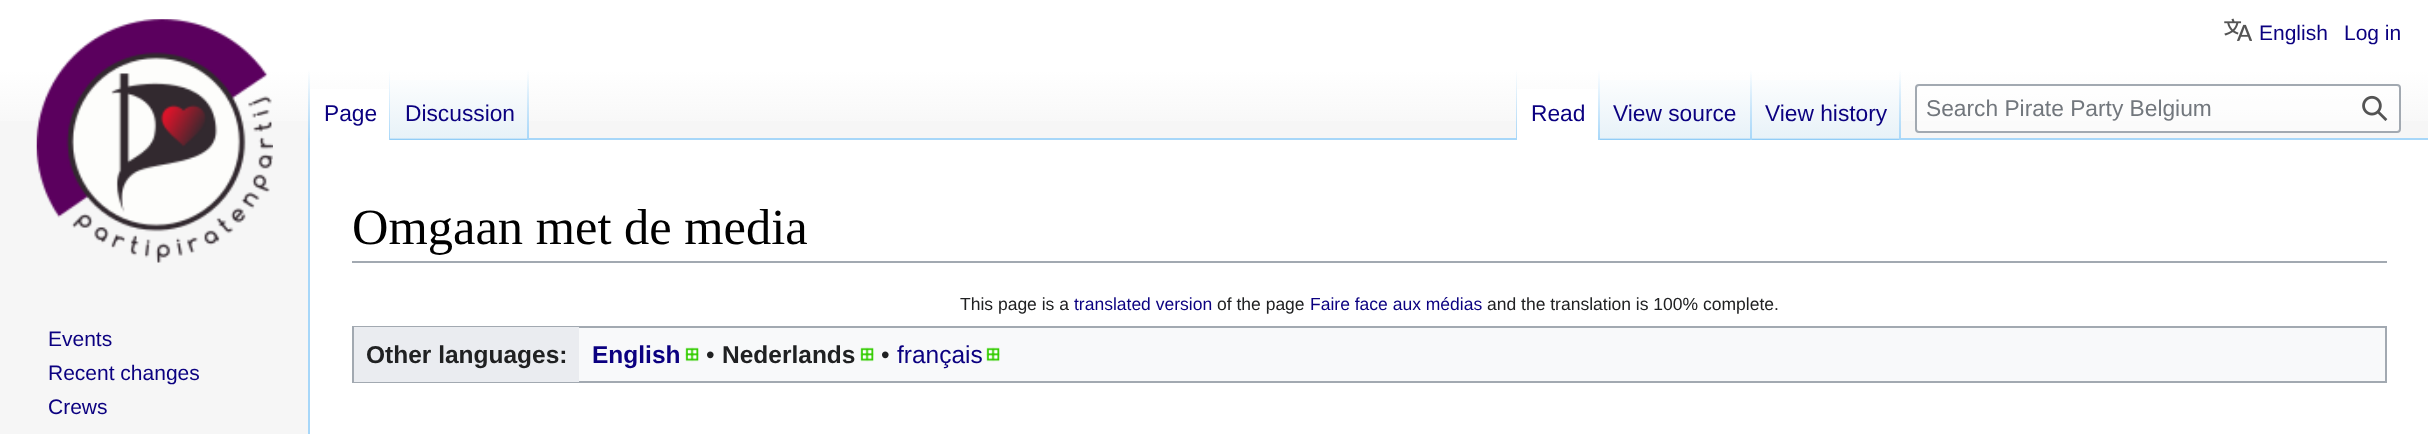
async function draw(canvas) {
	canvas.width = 2428;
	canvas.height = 434;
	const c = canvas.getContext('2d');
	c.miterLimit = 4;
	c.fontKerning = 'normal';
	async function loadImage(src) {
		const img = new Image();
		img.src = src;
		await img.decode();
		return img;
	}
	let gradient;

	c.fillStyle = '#f6f6f6';
	c.fillRect(0, 0, 2428, 434);
	gradient = c.createLinearGradient(1215, 0, 1215, 140);
	gradient.addColorStop(0.5, '#fff');
	gradient.addColorStop(1, '#f6f6f6');
	c.fillStyle = gradient;
	c.fillRect(0, 0, 2428, 121);
	c.drawImage(await loadImage('img1.png'), 2224, 18, 28, 23);
	c.font = '21px Liberation Sans';
	c.fillStyle = '#0b0080';
	c.fillText('English', 2259, 40);
	c.fillText('Log in', 2344, 40);
	c.fillStyle = '#a7d7f9';
	c.fillRect(308, 138, 2, 296);
	gradient = c.createLinearGradient(309, 70, 309, 140);
	gradient.addColorStop(0, '#a7d7f900');
	gradient.addColorStop(1, '#a7d7f9');
	c.fillStyle = gradient;
	c.fillRect(308, 70, 2, 70);
	c.fillStyle = '#fff';
	c.fillRect(310, 89, 79, 51);
	gradient = c.createLinearGradient(389, 70, 389, 140);
	gradient.addColorStop(0, '#fff');
	gradient.addColorStop(1, '#a7d7f9');
	c.fillStyle = gradient;
	c.fillRect(389, 70, 1, 70);
	c.font = '22.75px Liberation Sans';
	c.fillStyle = '#0b0080';
	c.fillText('Page', 324, 121);
	gradient = c.createLinearGradient(459, 140, 459, 70);
	gradient.addColorStop(0, '#77c1f6');
	gradient.addColorStop(0.03, '#e8f2f8');
	gradient.addColorStop(1, '#fff');
	c.fillStyle = gradient;
	c.fillRect(390, 80, 139, 60);
	gradient = c.createLinearGradient(528, 70, 528, 140);
	gradient.addColorStop(0, '#a7d7f900');
	gradient.addColorStop(1, '#a7d7f9');
	c.fillStyle = gradient;
	c.fillRect(527, 70, 2, 70);
	c.fillStyle = '#0b0080';
	c.fillText('Discussion', 405, 121);
	c.fillStyle = '#a7d7f9';
	c.fillRect(529, 138, 1899, 2);
	gradient = c.createLinearGradient(1516, 70, 1516, 140);
	gradient.addColorStop(0, '#a7d7f900');
	gradient.addColorStop(1, '#a7d7f9');
	c.fillStyle = gradient;
	c.fillRect(1516, 70, 1, 70);
	c.fillStyle = '#fff';
	c.fillRect(1517, 89, 81, 51);
	gradient = c.createLinearGradient(1599, 70, 1599, 140);
	gradient.addColorStop(0, '#fff');
	gradient.addColorStop(1, '#a7d7f9');
	c.fillStyle = gradient;
	c.fillRect(1598, 70, 2, 70);
	c.fillStyle = '#0b0080';
	c.fillText('Read', 1531, 121);
	gradient = c.createLinearGradient(1676, 140, 1676, 70);
	gradient.addColorStop(0, '#77c1f6');
	gradient.addColorStop(0.03, '#e8f2f8');
	gradient.addColorStop(1, '#fff');
	c.fillStyle = gradient;
	c.fillRect(1600, 80, 152, 60);
	gradient = c.createLinearGradient(1751, 70, 1751, 140);
	gradient.addColorStop(0, '#a7d7f900');
	gradient.addColorStop(1, '#a7d7f9');
	c.fillStyle = gradient;
	c.fillRect(1750, 70, 2, 70);
	c.fillStyle = '#0b0080';
	c.fillText('View source', 1613, 121);
	gradient = c.createLinearGradient(1826, 140, 1826, 70);
	gradient.addColorStop(0, '#77c1f6');
	gradient.addColorStop(0.03, '#e8f2f8');
	gradient.addColorStop(1, '#fff');
	c.fillStyle = gradient;
	c.fillRect(1752, 80, 149, 60);
	gradient = c.createLinearGradient(1900, 70, 1900, 140);
	gradient.addColorStop(0, '#a7d7f900');
	gradient.addColorStop(1, '#a7d7f9');
	c.fillStyle = gradient;
	c.fillRect(1899, 70, 2, 70);
	c.fillStyle = '#0b0080';
	c.fillText('View history', 1765, 121);
	c.fillStyle = '#ffffff80';
	c.beginPath();
	c.roundRect(1916, 85, 484, 47, 3);
	c.fill();
	c.strokeStyle = '#a2a9b1';
	c.lineWidth = 2;
	c.stroke();
	c.fillStyle = '#72777d';
	c.fillText('Search Pirate Party Belgium', 1926, 116);
	c.drawImage(await loadImage('img2.png'), 2362, 95, 26, 26);
	c.drawImage(await loadImage('img3.png'), 36, 19, 237, 244);
	c.font = '21px Liberation Sans';
	c.fillStyle = '#0b0080';
	for (const [text, x, y] of [
		['Events', 48, 346],
		['Recent changes', 48, 380],
		['Crews', 48, 414],
	]) {
		c.fillText(text, x, y);
	}
	c.fillStyle = '#fff';
	c.fillRect(310, 140, 2118, 294);
	c.fillStyle = '#a2a9b1';
	c.fillRect(352, 261, 2035, 2);
	c.font = '50.5px Liberation Serif';
	c.fillStyle = '#000';
	c.fillText('Omgaan met de media', 352, 244);
	c.font = '17.5px Liberation Sans';
	c.fillStyle = '#202122';
	c.fillText('This page is a', 960, 310);
	c.fillStyle = '#0b0080';
	c.fillText('translated version', 1074, 310);
	c.fillStyle = '#202122';
	c.fillText('of the page', 1217, 310);
	c.fillStyle = '#0b0080';
	c.fillText('Faire face aux médias', 1310, 310);
	c.fillStyle = '#202122';
	c.fillText('and the translation is 100% complete.', 1487, 310);
	c.fillStyle = '#f8f9fa';
	c.fillRect(579, 328, 1806, 53);
	c.strokeRect(353, 327, 2033, 55);
	c.fillStyle = '#eaecf0';
	c.fillRect(354, 327, 225, 55);
	c.font = 'bold 24.5px Liberation Sans';
	c.fillStyle = '#202122';
	c.fillText('Other languages:', 366, 363);
	c.fillStyle = '#0b0080';
	c.fillText('English', 592, 363);
	c.drawImage(await loadImage('img4.png'), 685, 347, 14, 15);
	c.font = '24.5px Liberation Sans';
	c.fillStyle = '#202122';
	c.fillText('•', 706, 363);
	c.font = 'bold 24.5px Liberation Sans';
	c.fillText('Nederlands', 722, 363);
	c.drawImage(await loadImage('img4.png'), 860, 347, 14, 15);
	c.font = '24.5px Liberation Sans';
	c.fillText('•', 881, 363);
	c.fillStyle = '#0b0080';
	c.fillText('français', 897, 363);
	c.drawImage(await loadImage('img4.png'), 986, 347, 14, 15);
}

draw(document.querySelector('canvas'));
